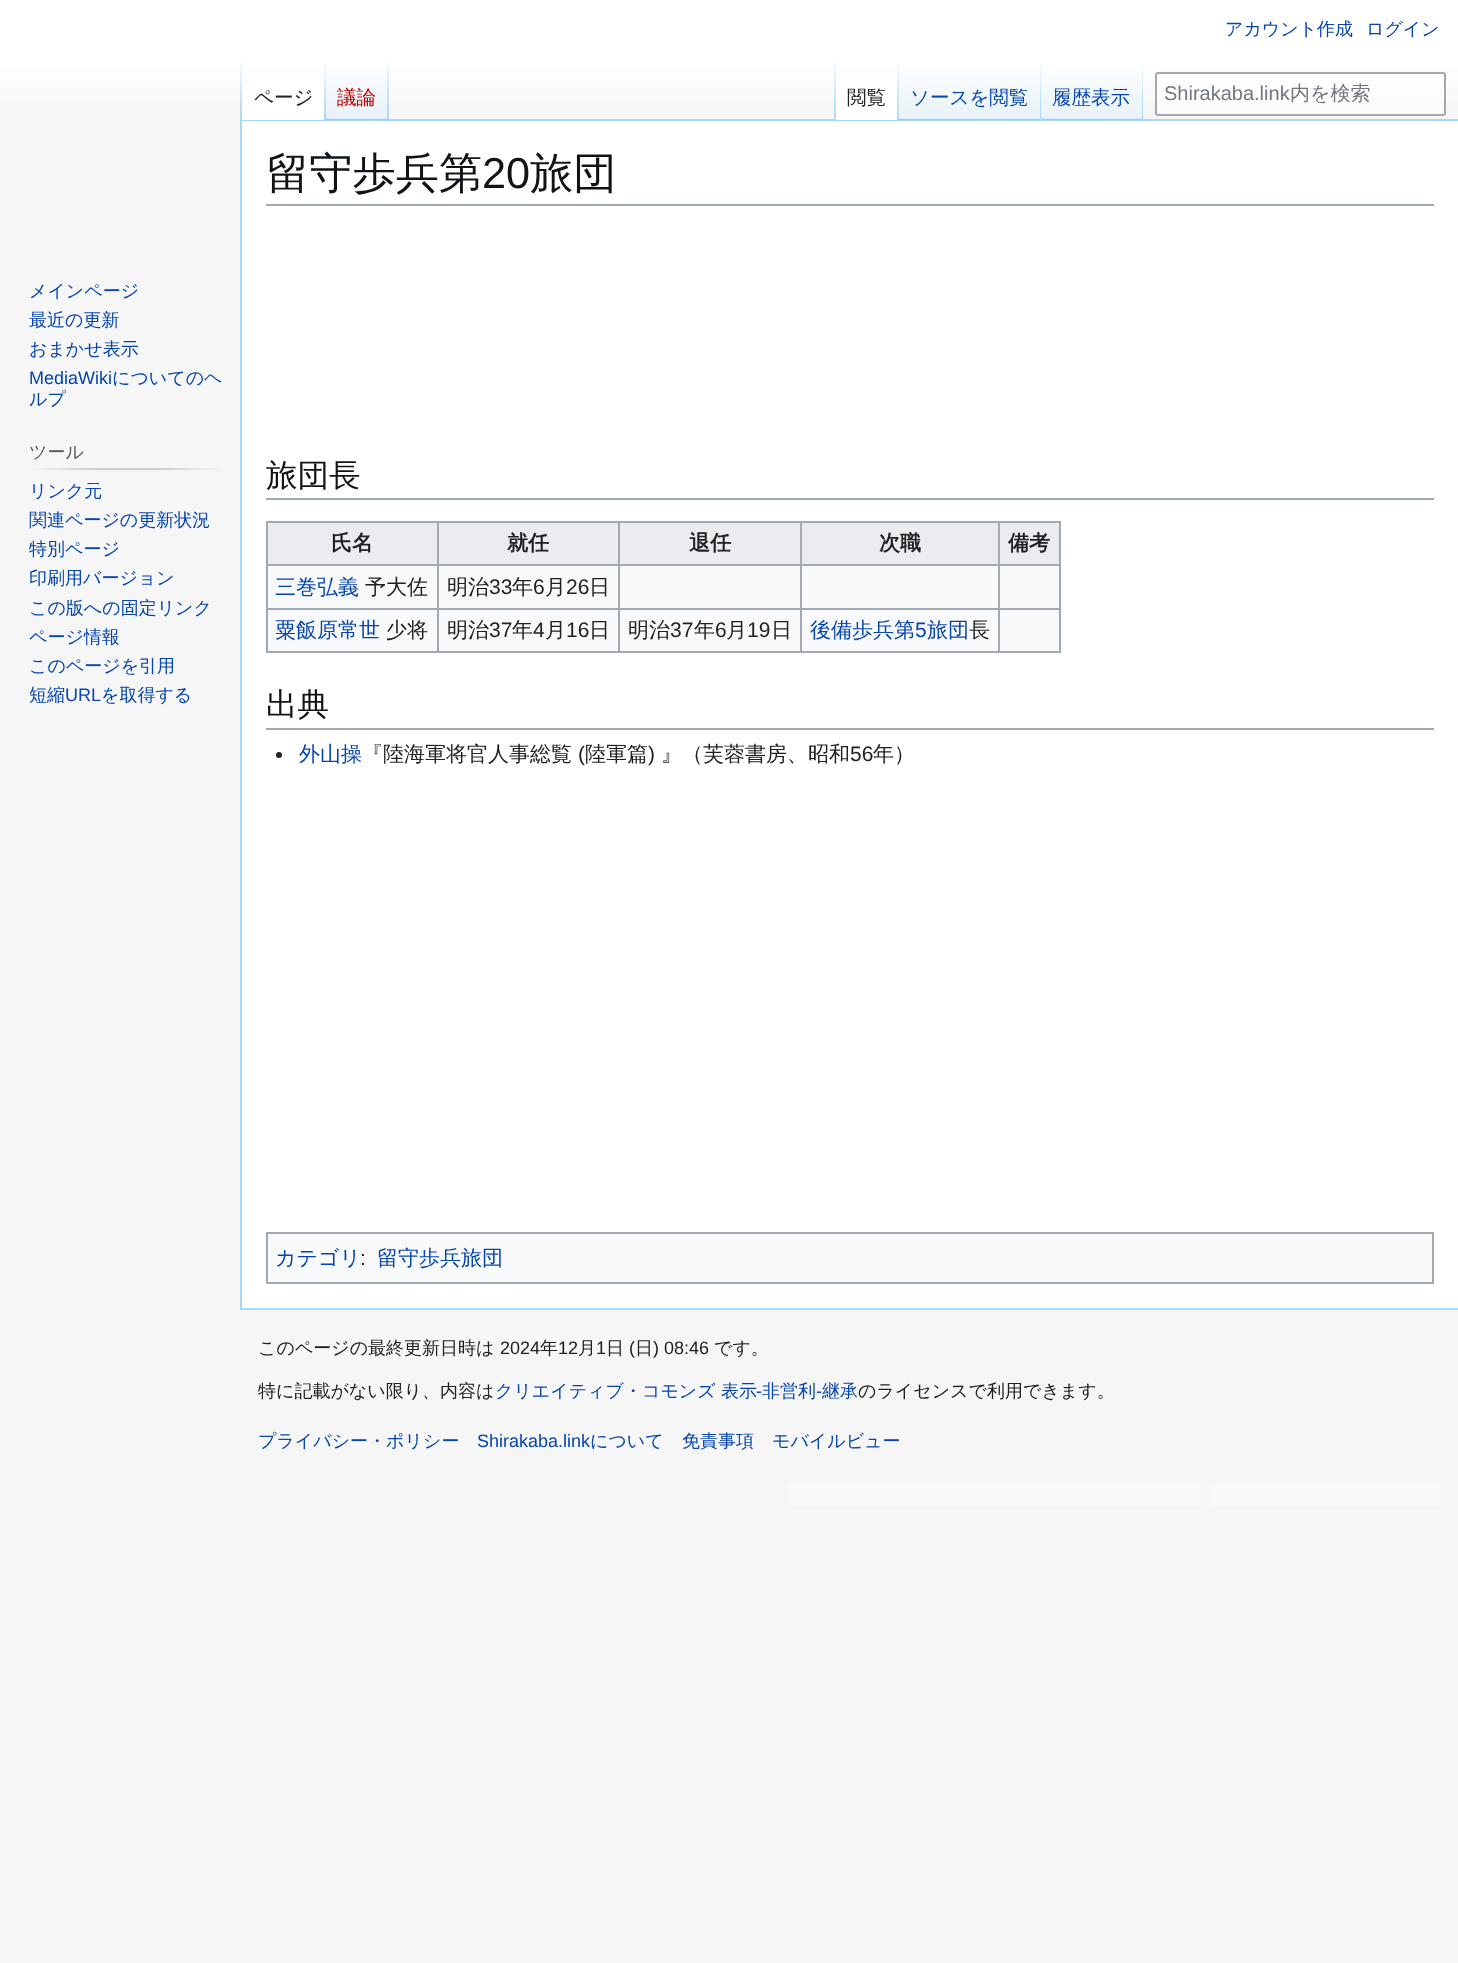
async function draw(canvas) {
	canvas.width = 1458;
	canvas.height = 1963;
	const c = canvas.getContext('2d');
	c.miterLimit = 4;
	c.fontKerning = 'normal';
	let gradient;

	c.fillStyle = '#f6f6f6';
	c.fillRect(0, 0, 1458, 1963);
	gradient = c.createLinearGradient(729, 0, 729, 120);
	gradient.addColorStop(0.5, '#fff');
	gradient.addColorStop(1, '#f6f6f6');
	c.fillStyle = gradient;
	c.fillRect(0, 0, 1458, 103);
	c.font = '500 18px WenQuanYi Zen Hei';
	c.fillStyle = '#0645ad';
	c.fillText('アカウント作成', 1225, 35);
	c.fillText('ログイン', 1366, 35);
	for (const [x, y, w, h, color] of [
		[240, 119, 1218, 2, '#a7d7f9'],
		[240, 1308, 1218, 2, '#a7d7f9'],
		[240, 119, 2, 1191, '#a7d7f9'],
	]) {
		c.fillStyle = color;
		c.fillRect(x, y, w, h);
	}
	gradient = c.createLinearGradient(241, 60, 241, 120);
	gradient.addColorStop(0, '#a7d7f900');
	gradient.addColorStop(1, '#a7d7f9');
	c.fillStyle = gradient;
	c.fillRect(240, 60, 2, 60);
	c.fillStyle = '#fff';
	c.fillRect(242, 77, 82, 43);
	gradient = c.createLinearGradient(325, 60, 325, 120);
	gradient.addColorStop(0, '#fff');
	gradient.addColorStop(1, '#a7d7f9');
	c.fillStyle = gradient;
	c.fillRect(324, 60, 2, 60);
	c.font = '500 19.5px WenQuanYi Zen Hei';
	c.fillStyle = '#202122';
	c.fillText('ページ', 254, 104);
	gradient = c.createLinearGradient(357, 120, 357, 60);
	gradient.addColorStop(0, '#77c1f6');
	gradient.addColorStop(0.03, '#e8f2f8');
	gradient.addColorStop(1, '#fff');
	c.fillStyle = gradient;
	c.fillRect(326, 69, 63, 51);
	gradient = c.createLinearGradient(388, 60, 388, 120);
	gradient.addColorStop(0, '#a7d7f900');
	gradient.addColorStop(1, '#a7d7f9');
	c.fillStyle = gradient;
	c.fillRect(387, 60, 2, 60);
	c.fillStyle = '#ba0000';
	c.fillText('議論', 337, 104);
	gradient = c.createLinearGradient(835, 60, 835, 120);
	gradient.addColorStop(0, '#a7d7f900');
	gradient.addColorStop(1, '#a7d7f9');
	c.fillStyle = gradient;
	c.fillRect(834, 60, 2, 60);
	c.fillStyle = '#fff';
	c.fillRect(836, 77, 61, 43);
	gradient = c.createLinearGradient(898, 60, 898, 120);
	gradient.addColorStop(0, '#fff');
	gradient.addColorStop(1, '#a7d7f9');
	c.fillStyle = gradient;
	c.fillRect(897, 60, 2, 60);
	c.fillStyle = '#202122';
	c.fillText('閲覧', 847, 104);
	gradient = c.createLinearGradient(970, 120, 970, 60);
	gradient.addColorStop(0, '#77c1f6');
	gradient.addColorStop(0.03, '#e8f2f8');
	gradient.addColorStop(1, '#fff');
	c.fillStyle = gradient;
	c.fillRect(899, 69, 142, 51);
	gradient = c.createLinearGradient(1040, 60, 1040, 120);
	gradient.addColorStop(0, '#a7d7f900');
	gradient.addColorStop(1, '#a7d7f9');
	c.fillStyle = gradient;
	c.fillRect(1040, 60, 1, 60);
	c.fillStyle = '#0645ad';
	c.fillText('ソースを閲覧', 910, 104);
	gradient = c.createLinearGradient(1092, 120, 1092, 60);
	gradient.addColorStop(0, '#77c1f6');
	gradient.addColorStop(0.03, '#e8f2f8');
	gradient.addColorStop(1, '#fff');
	c.fillStyle = gradient;
	c.fillRect(1041, 69, 102, 51);
	gradient = c.createLinearGradient(1142, 60, 1142, 120);
	gradient.addColorStop(0, '#a7d7f900');
	gradient.addColorStop(1, '#a7d7f9');
	c.fillStyle = gradient;
	c.fillRect(1142, 60, 1, 60);
	c.fillStyle = '#0645ad';
	c.fillText('履歴表示', 1052, 104);
	c.fillStyle = '#ffffff80';
	c.beginPath();
	c.roundRect(1156, 73, 289, 42, 2);
	c.fill();
	c.strokeStyle = '#a2a9b1';
	c.lineWidth = 2;
	c.stroke();
	c.font = '20px Liberation Sans';
	c.fillStyle = '#72777d';
	c.fillText('Shirakaba.link', 1164, 100);
	c.font = '500 20px WenQuanYi Zen Hei';
	c.fillText('内を検索', 1290, 100);
	c.font = '500 18px WenQuanYi Zen Hei';
	c.fillStyle = '#0645ad';
	for (const [text, x, y] of [
		['メインページ', 29, 297],
		['最近の更新', 29, 326],
		['おまかせ表示', 29, 355],
	]) {
		c.fillText(text, x, y);
	}
	c.font = '18px Liberation Sans';
	c.fillText('MediaWiki', 29, 384);
	c.font = '500 18px WenQuanYi Zen Hei';
	c.fillText('についてのヘ', 112, 384);
	c.fillText('ルプ', 29, 405);
	gradient = c.createLinearGradient(29, 469, 225, 469);
	gradient.addColorStop(0, '#f6f6f6');
	gradient.addColorStop(0.33, '#c8ccd1');
	gradient.addColorStop(0.66, '#c8ccd1');
	gradient.addColorStop(1, '#f6f6f6');
	c.fillStyle = gradient;
	c.fillRect(29, 468, 196, 2);
	c.fillStyle = '#54595d';
	c.fillText('ツール', 29, 458);
	c.fillStyle = '#0645ad';
	for (const [text, x, y] of [
		['リンク元', 29, 497],
		['関連ページの更新状況', 29, 526],
		['特別ページ', 29, 555],
		['印刷用バージョン', 29, 584],
		['この版への固定リンク', 29, 614],
		['ページ情報', 29, 643],
		['このページを引用', 29, 672],
		['短縮', 29, 701],
	]) {
		c.fillText(text, x, y);
	}
	c.font = '18px Liberation Sans';
	c.fillText('URL', 65, 701);
	c.font = '500 18px WenQuanYi Zen Hei';
	c.fillText('を取得する', 101, 701);
	c.fillStyle = '#fff';
	c.fillRect(242, 121, 1216, 1187);
	c.fillStyle = '#a2a9b1';
	c.fillRect(266, 204, 1168, 2);
	c.font = '500 43.25px WenQuanYi Zen Hei';
	c.fillStyle = '#101418';
	c.fillText('留守歩兵第', 266, 188);
	c.font = '43.25px Liberation Sans';
	c.fillText('20', 482, 188);
	c.font = '500 43.25px WenQuanYi Zen Hei';
	c.fillText('旅団', 530, 188);
	c.fillStyle = '#a2a9b1';
	c.fillRect(266, 498, 1168, 2);
	c.font = '500 31.5px WenQuanYi Zen Hei';
	c.fillStyle = '#101418';
	c.fillText('旅団長', 266, 486);
	for (const [x, y, w, h, color] of [
		[268, 566, 791, 85, '#f8f9fa'],
		[266, 521, 795, 2, '#a2a9b1'],
		[1059, 521, 2, 132, '#a2a9b1'],
		[266, 651, 795, 2, '#a2a9b1'],
		[266, 521, 2, 132, '#a2a9b1'],
		[268, 523, 169, 41, '#eaecf0'],
	]) {
		c.fillStyle = color;
		c.fillRect(x, y, w, h);
	}
	c.font = 'bold 21px WenQuanYi Zen Hei';
	c.fillStyle = '#202122';
	c.fillText('氏名', 331, 550);
	for (const [x, y, w, h, color] of [
		[439, 523, 179, 41, '#eaecf0'],
		[998, 564, 63, 2, '#a2a9b1'],
		[998, 608, 63, 2, '#a2a9b1'],
		[998, 608, 2, 45, '#a2a9b1'],
		[800, 608, 199, 2, '#a2a9b1'],
		[998, 564, 2, 45, '#a2a9b1'],
		[800, 564, 199, 2, '#a2a9b1'],
		[800, 608, 2, 45, '#a2a9b1'],
		[618, 608, 183, 2, '#a2a9b1'],
		[800, 564, 2, 45, '#a2a9b1'],
		[618, 564, 183, 2, '#a2a9b1'],
		[618, 608, 2, 45, '#a2a9b1'],
		[437, 608, 183, 2, '#a2a9b1'],
		[618, 564, 2, 45, '#a2a9b1'],
		[437, 564, 183, 2, '#a2a9b1'],
		[437, 608, 2, 45, '#a2a9b1'],
		[266, 608, 172, 2, '#a2a9b1'],
		[437, 564, 2, 45, '#a2a9b1'],
		[266, 564, 172, 2, '#a2a9b1'],
		[437, 521, 2, 45, '#a2a9b1'],
	]) {
		c.fillStyle = color;
		c.fillRect(x, y, w, h);
	}
	c.fillStyle = '#202122';
	c.fillText('就任', 507, 550);
	c.fillStyle = '#eaecf0';
	c.fillRect(620, 523, 180, 41);
	c.fillStyle = '#a2a9b1';
	c.fillRect(618, 521, 2, 45);
	c.fillStyle = '#202122';
	c.fillText('退任', 689, 550);
	c.fillStyle = '#eaecf0';
	c.fillRect(802, 523, 196, 41);
	c.fillStyle = '#a2a9b1';
	c.fillRect(800, 521, 2, 45);
	c.fillStyle = '#202122';
	c.fillText('次職', 879, 550);
	c.fillStyle = '#eaecf0';
	c.fillRect(1000, 523, 59, 41);
	c.fillStyle = '#a2a9b1';
	c.fillRect(998, 521, 2, 45);
	c.fillStyle = '#202122';
	c.fillText('備考', 1008, 550);
	c.font = '500 21px WenQuanYi Zen Hei';
	c.fillStyle = '#0645ad';
	c.fillText('三巻弘義', 275, 594);
	c.fillStyle = '#202122';
	c.fillText('予大佐', 365, 594);
	c.fillText('明治', 447, 594);
	c.font = '21px Liberation Sans';
	c.fillText('33', 489, 594);
	c.font = '500 21px WenQuanYi Zen Hei';
	c.fillText('年', 512, 594);
	c.font = '21px Liberation Sans';
	c.fillText('6', 533, 594);
	c.font = '500 21px WenQuanYi Zen Hei';
	c.fillText('月', 545, 594);
	c.font = '21px Liberation Sans';
	c.fillText('26', 566, 594);
	c.font = '500 21px WenQuanYi Zen Hei';
	c.fillText('日', 589, 594);
	c.fillStyle = '#0645ad';
	c.fillText('粟飯原常世', 275, 637);
	c.fillStyle = '#202122';
	c.fillText('少将', 386, 637);
	c.fillText('明治', 447, 637);
	c.font = '21px Liberation Sans';
	c.fillText('37', 489, 637);
	c.font = '500 21px WenQuanYi Zen Hei';
	c.fillText('年', 512, 637);
	c.font = '21px Liberation Sans';
	c.fillText('4', 533, 637);
	c.font = '500 21px WenQuanYi Zen Hei';
	c.fillText('月', 545, 637);
	c.font = '21px Liberation Sans';
	c.fillText('16', 566, 637);
	c.font = '500 21px WenQuanYi Zen Hei';
	c.fillText('日', 589, 637);
	c.fillText('明治', 628, 637);
	c.font = '21px Liberation Sans';
	c.fillText('37', 670, 637);
	c.font = '500 21px WenQuanYi Zen Hei';
	c.fillText('年', 694, 637);
	c.font = '21px Liberation Sans';
	c.fillText('6', 715, 637);
	c.font = '500 21px WenQuanYi Zen Hei';
	c.fillText('月', 726, 637);
	c.font = '21px Liberation Sans';
	c.fillText('19', 747, 637);
	c.font = '500 21px WenQuanYi Zen Hei';
	c.fillText('日', 771, 637);
	c.fillStyle = '#0645ad';
	c.fillText('後備歩兵第', 810, 637);
	c.font = '21px Liberation Sans';
	c.fillText('5', 915, 637);
	c.font = '500 21px WenQuanYi Zen Hei';
	c.fillText('旅団', 927, 637);
	c.fillStyle = '#202122';
	c.fillText('長', 969, 637);
	c.fillStyle = '#a2a9b1';
	c.fillRect(266, 728, 1168, 2);
	c.font = '500 31.5px WenQuanYi Zen Hei';
	c.fillStyle = '#101418';
	c.fillText('出典', 266, 715);
	c.fillStyle = '#202122';
	c.beginPath();
	c.arc(279, 755, 3, 0, 2 * Math.PI);
	c.fill();
	c.font = '500 21px WenQuanYi Zen Hei';
	c.fillStyle = '#0645ad';
	c.fillText('外山操', 299, 761);
	c.fillStyle = '#202122';
	c.fillText('『陸海軍将官人事総覧', 362, 761);
	c.font = '21px Liberation Sans';
	c.fillText('(', 578, 761);
	c.font = '500 21px WenQuanYi Zen Hei';
	c.fillText('陸軍篇', 585, 761);
	c.font = '21px Liberation Sans';
	c.fillText(')', 648, 761);
	c.font = '500 21px WenQuanYi Zen Hei';
	c.fillText('』（芙蓉書房、昭和', 661, 761);
	c.font = '21px Liberation Sans';
	c.fillText('56', 850, 761);
	c.font = '500 21px WenQuanYi Zen Hei';
	c.fillText('年）', 873, 761);
	c.fillStyle = '#f8f9fa';
	c.beginPath();
	c.rect(267, 1233, 1166, 50);
	c.fill();
	c.stroke();
	c.fillStyle = '#0645ad';
	c.fillText('カテゴリ', 275, 1265);
	c.font = '21px Liberation Sans';
	c.fillStyle = '#202122';
	c.fillText(':', 360, 1265);
	c.font = '500 21px WenQuanYi Zen Hei';
	c.fillStyle = '#0645ad';
	c.fillText('留守歩兵旅団', 377, 1265);
	c.font = '500 18px WenQuanYi Zen Hei';
	c.fillStyle = '#202122';
	c.fillText('このページの最終更新日時は', 258, 1354);
	c.font = '18px Liberation Sans';
	c.fillText('2024', 500, 1354);
	c.font = '500 18px WenQuanYi Zen Hei';
	c.fillText('年', 540, 1354);
	c.font = '18px Liberation Sans';
	c.fillText('12', 558, 1354);
	c.font = '500 18px WenQuanYi Zen Hei';
	c.fillText('月', 578, 1354);
	c.font = '18px Liberation Sans';
	c.fillText('1', 596, 1354);
	c.font = '500 18px WenQuanYi Zen Hei';
	c.fillText('日', 606, 1354);
	c.font = '18px Liberation Sans';
	c.fillText('(', 629, 1354);
	c.font = '500 18px WenQuanYi Zen Hei';
	c.fillText('日', 635, 1354);
	c.font = '18px Liberation Sans';
	c.fillText(') 08:46', 653, 1354);
	c.font = '500 18px WenQuanYi Zen Hei';
	c.fillText('です。', 714, 1354);
	c.fillText('特に記載がない限り、内容は', 258, 1397);
	c.fillStyle = '#0645ad';
	c.fillText('クリエイティブ・コモンズ 表示', 495, 1397);
	c.font = '18px Liberation Sans';
	c.fillText('-', 756, 1397);
	c.font = '500 18px WenQuanYi Zen Hei';
	c.fillText('非営利', 762, 1397);
	c.font = '18px Liberation Sans';
	c.fillText('-', 816, 1397);
	c.font = '500 18px WenQuanYi Zen Hei';
	c.fillText('継承', 822, 1397);
	c.fillStyle = '#202122';
	c.fillText('のライセンスで利用できます。', 858, 1397);
	c.fillStyle = '#0645ad';
	c.fillText('プライバシー・ポリシー', 258, 1447);
	c.font = '18px Liberation Sans';
	c.fillText('Shirakaba.link', 477, 1447);
	c.font = '500 18px WenQuanYi Zen Hei';
	for (const [text, x, y] of [
		['について', 590, 1447],
		['免責事項', 682, 1447],
		['モバイルビュー', 772, 1447],
	]) {
		c.fillText(text, x, y);
	}
	c.fillStyle = '#f8f9fa';
	c.fillRect(789, 1484, 411, 21);
	c.fillRect(1209, 1484, 231, 21);
}

draw(document.querySelector('canvas'));
